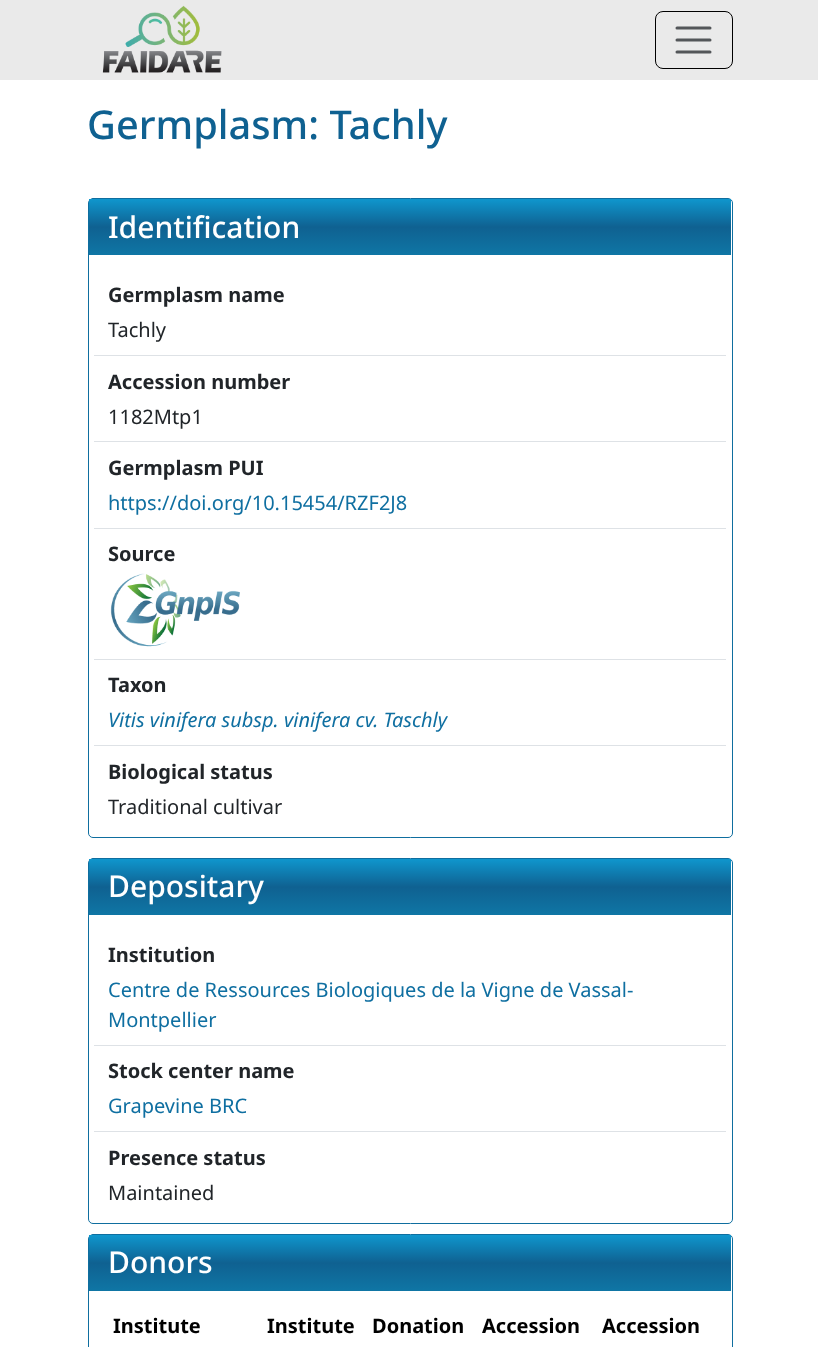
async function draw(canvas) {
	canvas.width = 818;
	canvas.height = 1347;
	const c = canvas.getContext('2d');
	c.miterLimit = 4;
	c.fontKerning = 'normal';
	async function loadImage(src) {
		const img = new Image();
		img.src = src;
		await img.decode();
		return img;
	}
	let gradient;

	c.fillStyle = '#fff';
	c.fillRect(0, 0, 818, 1347);
	c.fillStyle = '#eaeaea';
	c.fillRect(0, 0, 818, 80);
	c.drawImage(await loadImage('img1.png'), 102, 5, 120, 68);
	c.beginPath();
	c.roundRect(655.5, 11.5, 77, 57, 7.5);
	c.strokeStyle = '#000';
	c.stroke();
	c.beginPath();
	c.moveTo(677, 28);
	c.lineTo(710, 28);
	c.moveTo(677, 40);
	c.lineTo(710, 40);
	c.moveTo(677, 52);
	c.lineTo(710, 52);
	c.strokeStyle = '#535659';
	c.lineWidth = 3;
	c.lineCap = 'round';
	c.stroke();
	c.font = '500 39.75px Noto Sans';
	c.fillStyle = '#0f6191';
	c.fillText('Germplasm: Tachly', 87, 139);
	c.beginPath();
	c.roundRect(88.5, 198.5, 644, 639, 4.5);
	c.strokeStyle = '#0f6e9f';
	c.lineWidth = 1;
	c.stroke();
	gradient = c.createLinearGradient(410, 199, 410, 255);
	gradient.addColorStop(0, '#0f96cd');
	gradient.addColorStop(0.5, '#0f6191');
	gradient.addColorStop(1, '#0f76a5');
	c.fillStyle = gradient;
	c.fillRect(89, 199, 642, 56);
	c.font = '500 30px Noto Sans';
	c.fillStyle = '#fff';
	c.fillText('Identification', 108, 238);
	c.font = 'bold 20px Noto Sans';
	c.fillStyle = '#212529';
	c.fillText('Germplasm name', 108, 302);
	c.font = '20px Noto Sans';
	c.fillText('Tachly', 108, 337);
	c.fillStyle = '#dee2e6';
	c.fillRect(94, 355, 632, 1);
	c.font = 'bold 20px Noto Sans';
	c.fillStyle = '#212529';
	c.fillText('Accession number', 108, 389);
	c.font = '20px Noto Sans';
	c.fillText('1182Mtp1', 108, 424);
	c.fillStyle = '#dee2e6';
	c.fillRect(94, 441, 632, 1);
	c.font = 'bold 20px Noto Sans';
	c.fillStyle = '#212529';
	c.fillText('Germplasm PUI', 108, 475);
	c.font = '20px Noto Sans';
	c.fillStyle = '#0f6fa1';
	c.fillText('https://doi.org/10.15454/RZF2J8', 108, 510);
	c.fillStyle = '#dee2e6';
	c.fillRect(94, 528, 632, 1);
	c.font = 'bold 20px Noto Sans';
	c.fillStyle = '#212529';
	c.fillText('Source', 108, 561);
	c.drawImage(await loadImage('img2.png'), 110, 573, 130, 74);
	c.fillStyle = '#dee2e6';
	c.fillRect(94, 659, 632, 1);
	c.fillStyle = '#212529';
	c.fillText('Taxon', 108, 692);
	c.font = 'italic 20px Noto Sans';
	c.fillStyle = '#0f6fa1';
	c.fillText('Vitis vinifera subsp. vinifera cv. Taschly', 108, 727);
	c.fillStyle = '#dee2e6';
	c.fillRect(94, 745, 632, 1);
	c.font = 'bold 20px Noto Sans';
	c.fillStyle = '#212529';
	c.fillText('Biological status', 108, 779);
	c.font = '20px Noto Sans';
	c.fillText('Traditional cultivar', 108, 814);
	c.beginPath();
	c.roundRect(88.5, 858.5, 644, 365, 4.5);
	c.stroke();
	gradient = c.createLinearGradient(410, 859, 410, 915);
	gradient.addColorStop(0, '#0f96cd');
	gradient.addColorStop(0.5, '#0f6191');
	gradient.addColorStop(1, '#0f76a5');
	c.fillStyle = gradient;
	c.fillRect(89, 859, 642, 56);
	c.font = '500 30px Noto Sans';
	c.fillStyle = '#fff';
	c.fillText('Depositary', 108, 897);
	c.font = 'bold 20px Noto Sans';
	c.fillStyle = '#212529';
	c.fillText('Institution', 108, 962);
	c.font = '20px Noto Sans';
	c.fillStyle = '#0f6fa1';
	c.fillText('Centre de Ressources Biologiques de la Vigne de Vassal-', 108, 997);
	c.fillText('Montpellier', 108, 1027);
	c.fillStyle = '#dee2e6';
	c.fillRect(94, 1045, 632, 1);
	c.font = 'bold 20px Noto Sans';
	c.fillStyle = '#212529';
	c.fillText('Stock center name', 108, 1078);
	c.font = '20px Noto Sans';
	c.fillStyle = '#0f6fa1';
	c.fillText('Grapevine BRC', 108, 1113);
	c.fillStyle = '#dee2e6';
	c.fillRect(94, 1131, 632, 1);
	c.font = 'bold 20px Noto Sans';
	c.fillStyle = '#212529';
	c.fillText('Presence status', 108, 1165);
	c.font = '20px Noto Sans';
	c.fillText('Maintained', 108, 1200);
	c.beginPath();
	c.roundRect(88.5, 1234.5, 644, 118, 4.5);
	c.stroke();
	gradient = c.createLinearGradient(410, 1235, 410, 1291);
	gradient.addColorStop(0, '#0f96cd');
	gradient.addColorStop(0.5, '#0f6191');
	gradient.addColorStop(1, '#0f76a5');
	c.fillStyle = gradient;
	c.fillRect(89, 1235, 642, 56);
	c.font = '500 30px Noto Sans';
	c.fillStyle = '#fff';
	c.fillText('Donors', 108, 1273);
	c.font = 'bold 20px Noto Sans';
	c.fillStyle = '#000';
	for (const [text, x, y] of [
		['Institute', 113, 1333],
		['Institute', 267, 1333],
		['Donation', 372, 1333],
		['Accession', 482, 1333],
		['Accession', 602, 1333],
	]) {
		c.fillText(text, x, y);
	}
}

draw(document.querySelector('canvas'));
